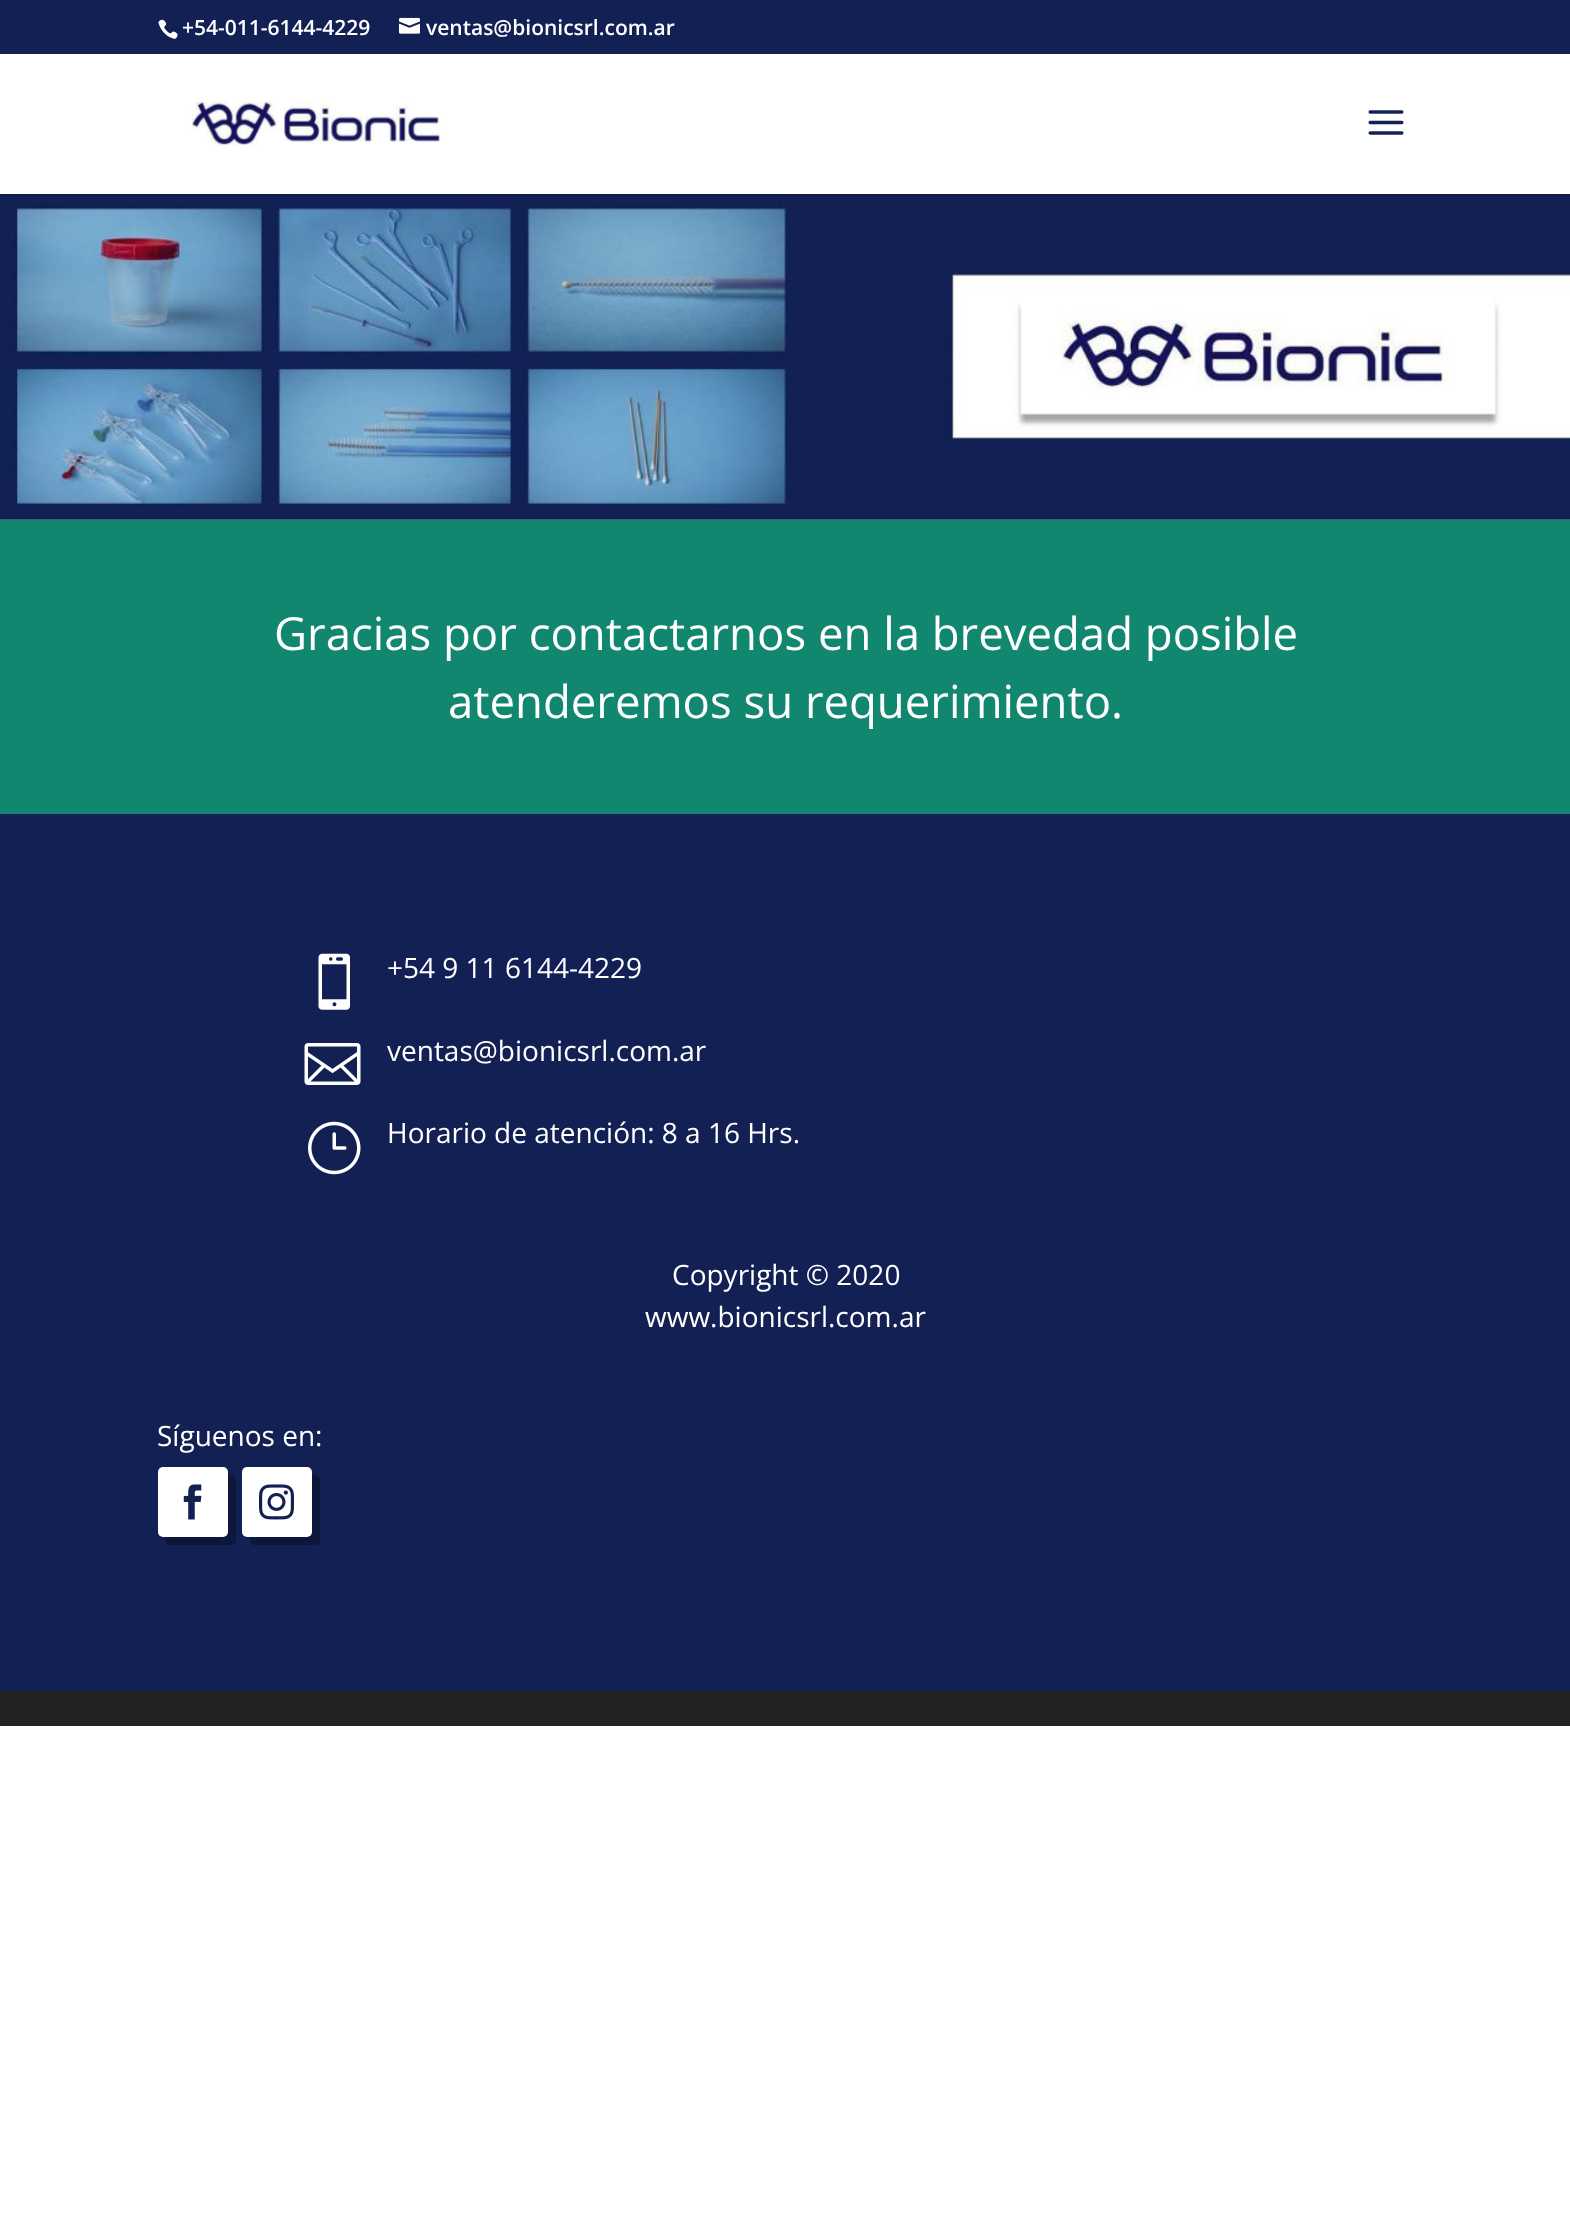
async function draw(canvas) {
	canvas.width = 1570;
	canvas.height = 2222;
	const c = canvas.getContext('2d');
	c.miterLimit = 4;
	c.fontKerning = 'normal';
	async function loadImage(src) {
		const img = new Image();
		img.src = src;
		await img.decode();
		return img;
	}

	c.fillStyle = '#fff';
	c.fillRect(0, 0, 1570, 2222);
	c.fillStyle = '#132054';
	c.fillRect(0, 0, 1570, 54);
	c.drawImage(await loadImage('img1.png'), 158, 19, 20, 20);
	c.font = '600 21px Open Sans';
	c.fillStyle = '#fff';
	c.fillText('+54-011-6144-4229', 182, 35);
	c.drawImage(await loadImage('img2.png'), 399, 17, 21, 17);
	c.fillText('ventas@bionicsrl.com.ar', 426, 35);
	c.drawImage(await loadImage('img5.png'), 0, 194, 1570, 326);
	c.fillStyle = '#0000001a';
	c.beginPath();
	c.moveTo(0, 194);
	c.lineTo(0, 196);
	c.lineTo(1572, 196);
	c.lineTo(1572, 56);
	c.lineTo(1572, 194);
	c.closePath();
	c.fill();
	c.drawImage(await loadImage('img3.png'), 191, 101, 252, 48);
	c.drawImage(await loadImage('img4.png'), 1368, 110, 36, 25);
	c.fillStyle = '#12876f';
	c.fillRect(0, 520, 1570, 294);
	c.font = '45.5px Open Sans';
	c.fillStyle = '#fff';
	c.fillText('Gracias por contactarnos en la brevedad posible', 274, 650);
	c.fillText('atenderemos su requerimiento.', 448, 718);
	c.fillStyle = '#132054';
	c.fillRect(0, 814, 1570, 877);
	c.drawImage(await loadImage('img6.png'), 318, 953, 32, 57);
	c.font = '28px Open Sans';
	c.fillStyle = '#fff';
	c.fillText('+54 9 11 6144-4229', 387, 978);
	c.drawImage(await loadImage('img7.png'), 304, 1043, 57, 42);
	c.fillText('ventas@bionicsrl.com.ar', 387, 1061);
	c.drawImage(await loadImage('img8.png'), 308, 1121, 53, 54);
	for (const [text, x, y] of [
		['Horario de atención: 8 a 16 Hrs.', 387, 1143],
		['Copyright © 2020', 672, 1285],
		['www.bionicsrl.com.ar', 645, 1327],
		['Síguenos en:', 157, 1446],
	]) {
		c.fillText(text, x, y);
	}
	c.fillStyle = '#0d163b';
	c.beginPath();
	c.moveTo(166, 1536);
	c.lineTo(166, 1540);
	c.bezierCurveTo(166, 1543, 168, 1545, 171, 1545);
	c.lineTo(231, 1545);
	c.bezierCurveTo(234, 1545, 236, 1543, 236, 1540);
	c.lineTo(236, 1480);
	c.bezierCurveTo(236, 1477, 234, 1475, 231, 1475);
	c.lineTo(228, 1475);
	c.lineTo(228, 1531);
	c.bezierCurveTo(228, 1534, 225, 1536, 222, 1536);
	c.closePath();
	c.fill();
	c.fillStyle = '#fff';
	c.beginPath();
	c.roundRect(158, 1467, 70, 70, 5);
	c.fill();
	c.drawImage(await loadImage('img9.png'), 183, 1484, 19, 36);
	c.fillStyle = '#0d163b';
	c.beginPath();
	c.moveTo(250, 1536);
	c.lineTo(250, 1540);
	c.bezierCurveTo(250, 1543, 252, 1545, 255, 1545);
	c.lineTo(315, 1545);
	c.bezierCurveTo(318, 1545, 320, 1543, 320, 1540);
	c.lineTo(320, 1480);
	c.bezierCurveTo(320, 1477, 318, 1475, 315, 1475);
	c.lineTo(312, 1475);
	c.lineTo(312, 1531);
	c.bezierCurveTo(312, 1534, 309, 1536, 306, 1536);
	c.closePath();
	c.fill();
	c.fillStyle = '#fff';
	c.beginPath();
	c.roundRect(242, 1467, 70, 70, 5);
	c.fill();
	c.drawImage(await loadImage('img10.png'), 259, 1484, 35, 36);
	c.fillStyle = '#222';
	c.fillRect(0, 1691, 1570, 35);
}

draw(document.querySelector('canvas'));
